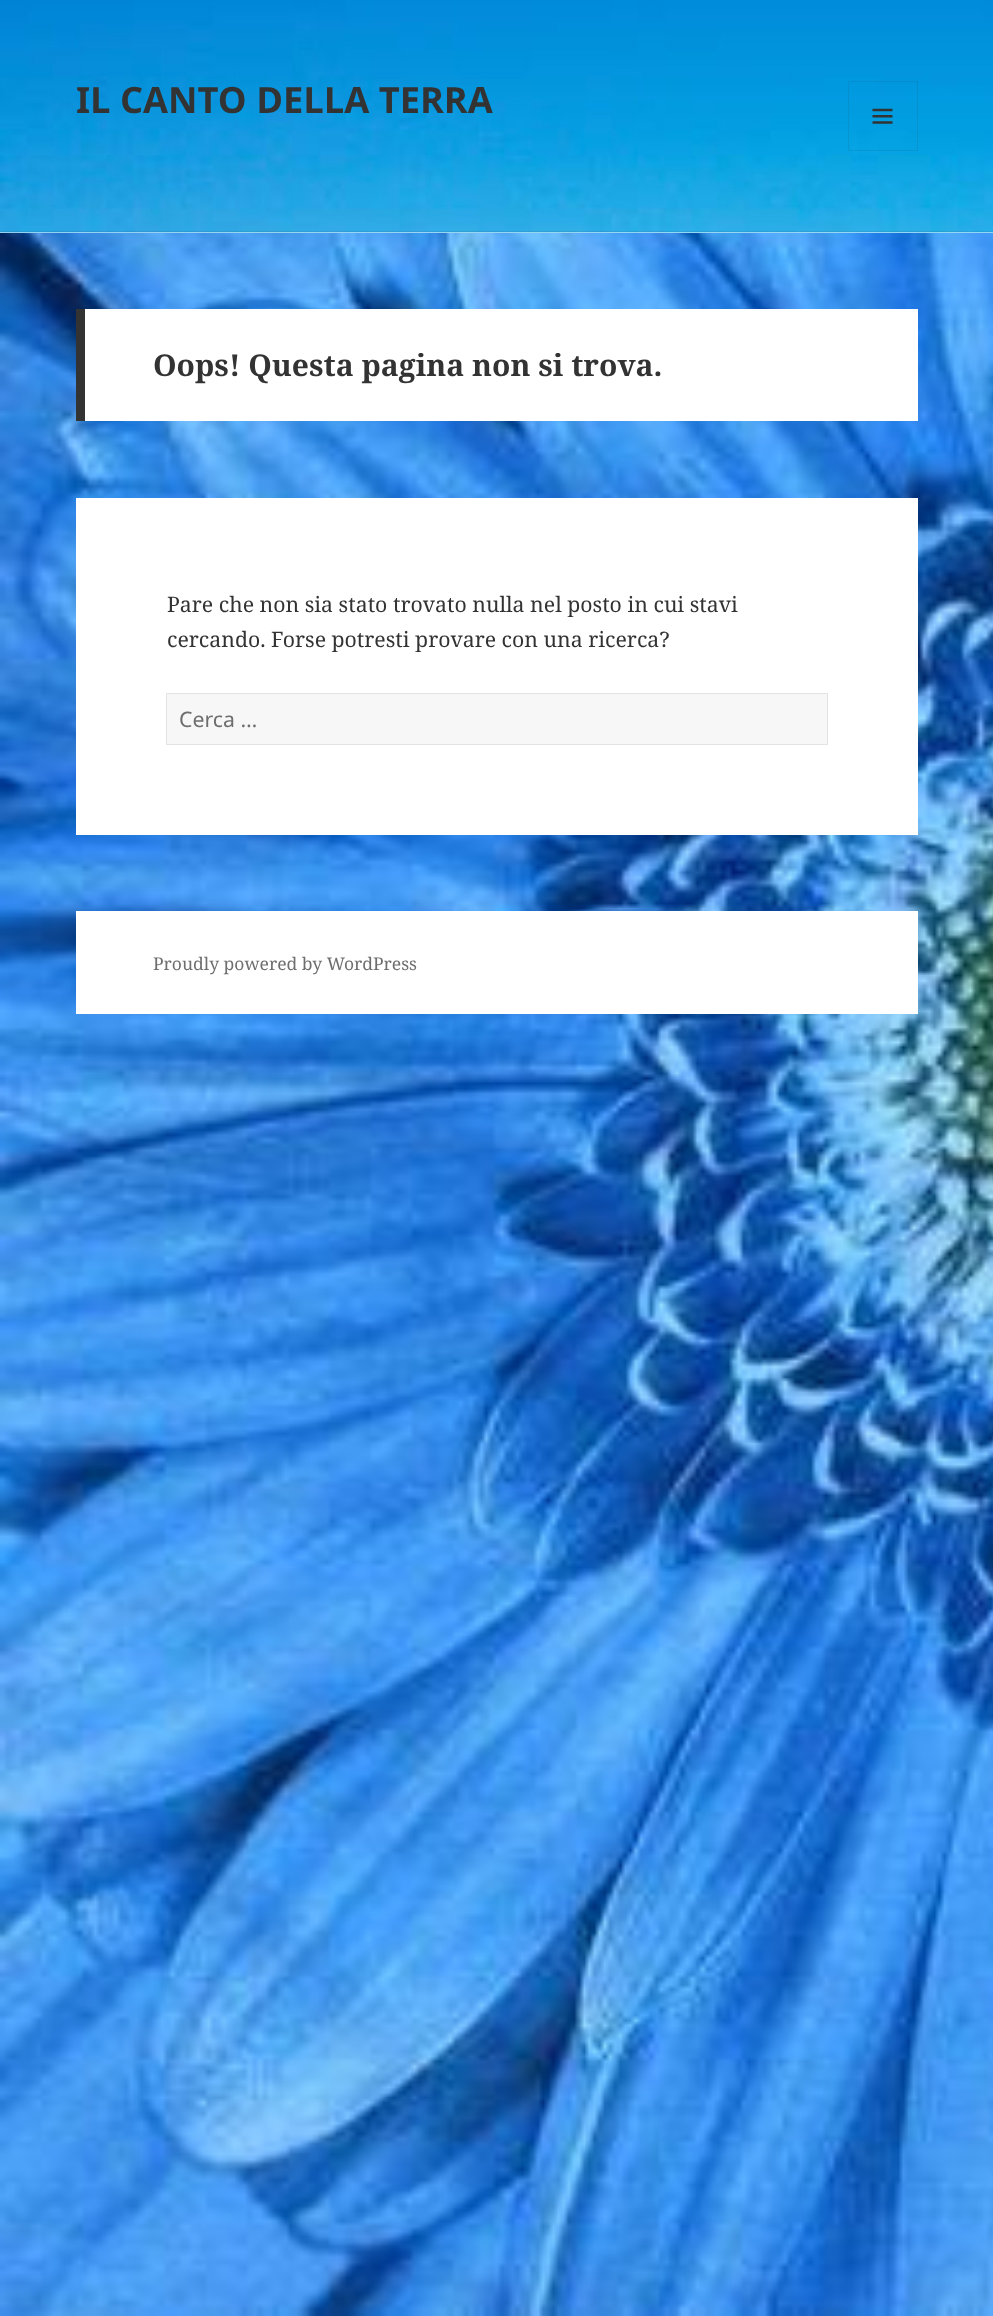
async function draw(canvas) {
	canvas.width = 993;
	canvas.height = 2316;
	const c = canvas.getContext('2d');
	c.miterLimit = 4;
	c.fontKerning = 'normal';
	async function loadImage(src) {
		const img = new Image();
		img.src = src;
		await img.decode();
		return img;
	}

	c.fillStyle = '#fff';
	c.fillRect(0, 0, 993, 2316);
	c.drawImage(await loadImage('img1.png'), 0, 233, 993, 2083);
	c.drawImage(await loadImage('img2.png'), 0, 0, 993, 233);
	c.fillStyle = '#3333331a';
	c.fillRect(0, 231, 993, 1);
	c.font = 'bold 36.25px Noto Sans';
	c.fillStyle = '#333';
	c.fillText('IL CANTO DELLA TERRA', 76, 113);
	c.strokeStyle = '#3333331a';
	c.strokeRect(848.5, 81.5, 69, 69);
	c.drawImage(await loadImage('img3.png'), 872, 108, 21, 16);
	c.fillStyle = '#fff';
	c.fillRect(85, 309, 833, 112);
	c.fillStyle = '#333';
	c.fillRect(76, 309, 9, 112);
	c.font = 'bold 30px Noto Serif';
	c.fillText('Oops! Questa pagina non si trova.', 153, 376);
	c.fillStyle = '#fff';
	c.fillRect(76, 498, 842, 337);
	c.font = '21.25px Noto Serif';
	c.fillStyle = '#333';
	c.fillText('Pare che non sia stato trovato nulla nel posto in cui stavi', 167, 612);
	c.fillText('cercando. Forse potresti provare con una ricerca?', 167, 647);
	c.fillStyle = '#f7f7f7';
	c.beginPath();
	c.rect(166.5, 693.5, 661, 51);
	c.fill();
	c.strokeStyle = '#e3e3e3';
	c.stroke();
	c.font = '21.25px Noto Sans';
	c.fillStyle = '#6e6e6e';
	c.fillText('Cerca …', 179, 727);
	c.fillStyle = '#fff';
	c.fillRect(76, 911, 842, 103);
	c.font = '17.5px Noto Serif';
	c.fillStyle = '#6e6e6e';
	c.fillText('Proudly powered by WordPress', 153, 970);
}

draw(document.querySelector('canvas'));
